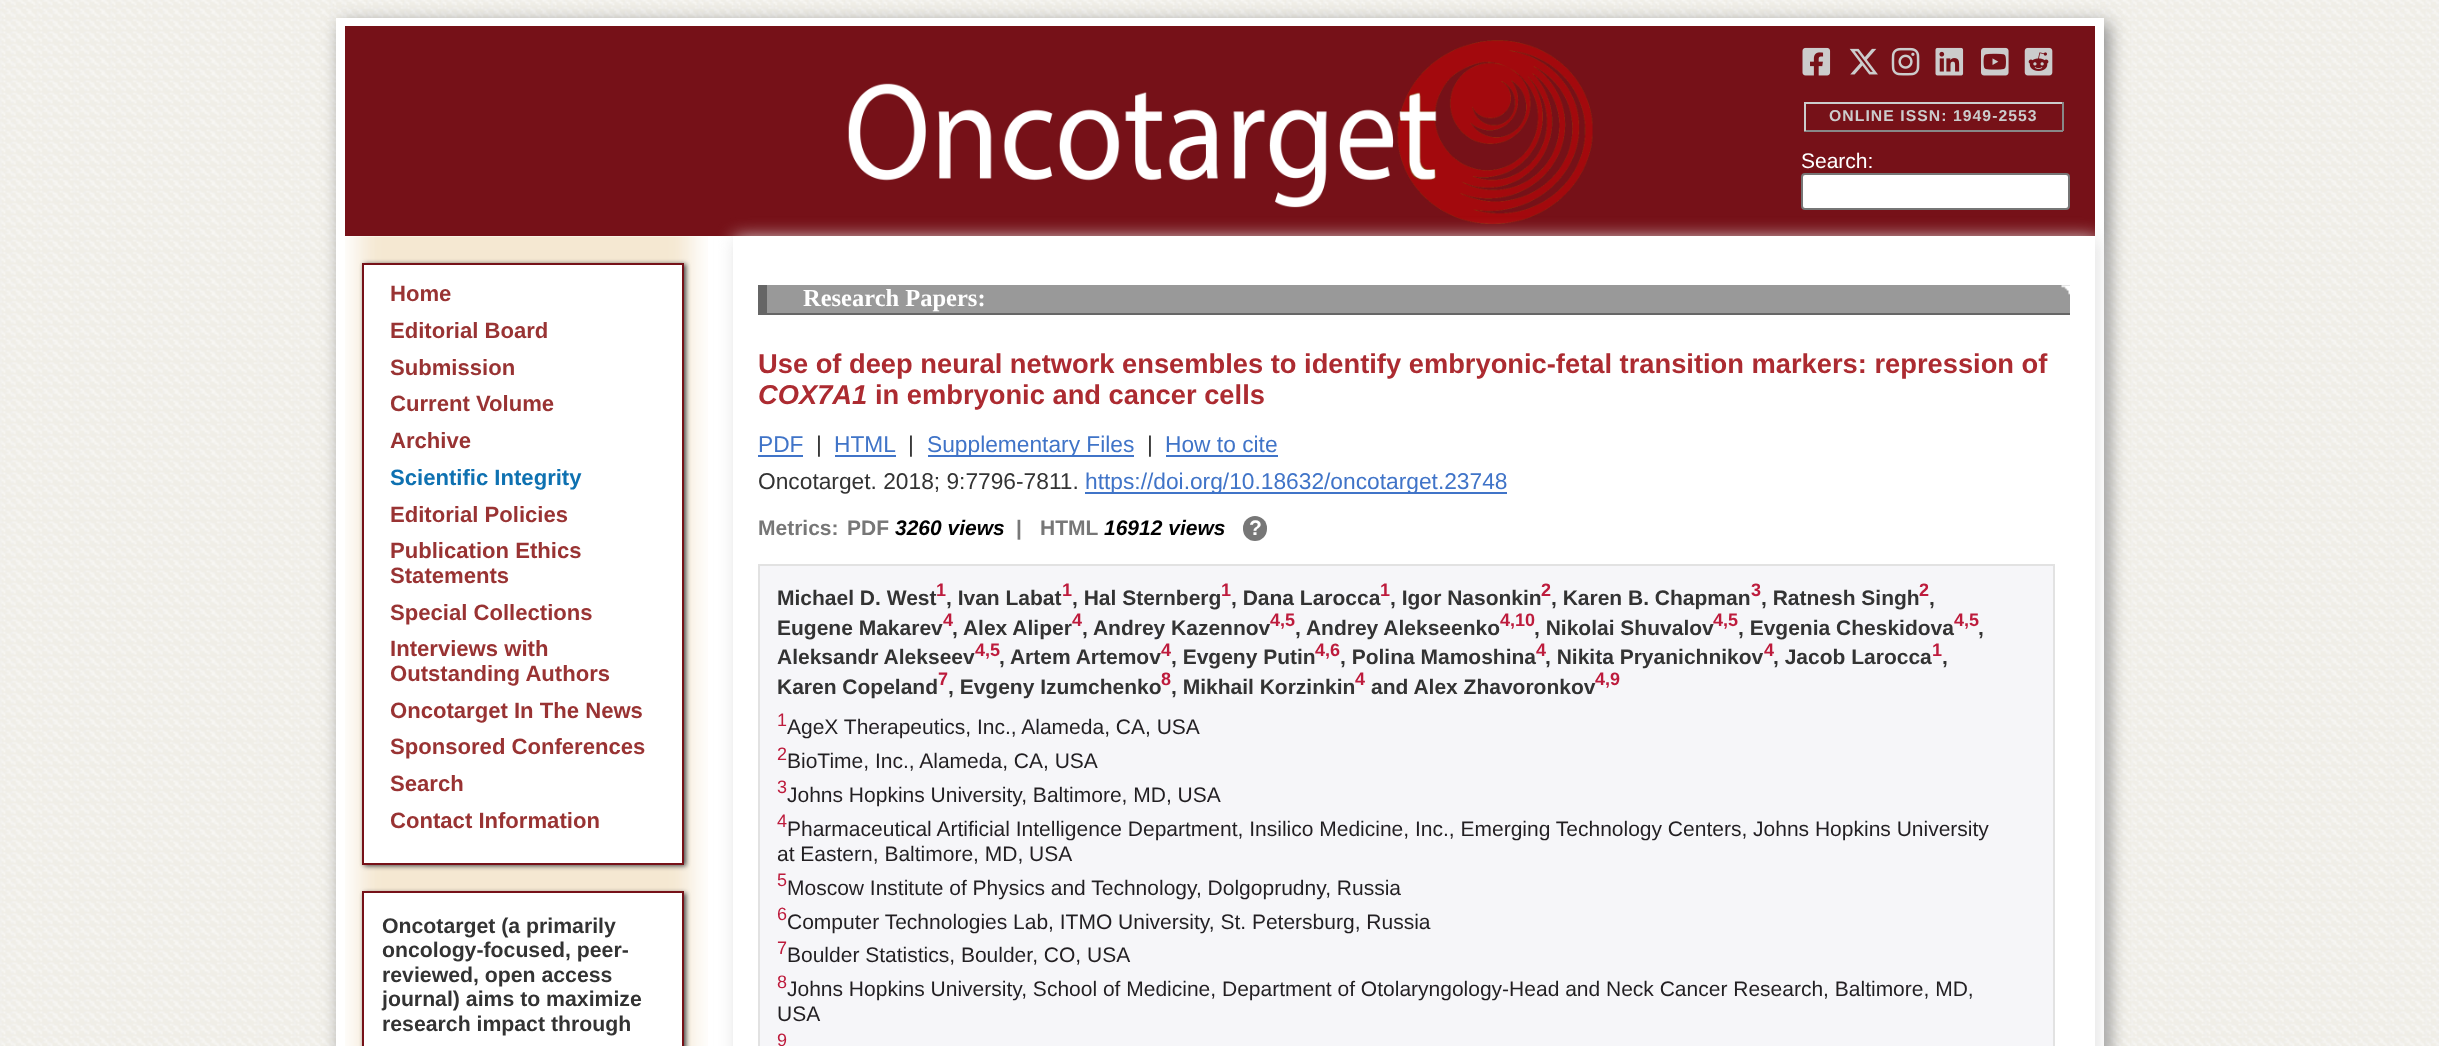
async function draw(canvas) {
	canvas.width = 2439;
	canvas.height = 1046;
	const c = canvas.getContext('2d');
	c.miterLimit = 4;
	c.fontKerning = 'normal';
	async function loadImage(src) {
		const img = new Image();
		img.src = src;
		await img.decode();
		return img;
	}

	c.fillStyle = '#fff';
	c.fillRect(0, 0, 2439, 1046);
	c.drawImage(await loadImage('img1.png'), 0, 0, 2439, 1046);
	c.fillStyle = '#888';
	c.filter = 'blur(9px)';
	c.beginPath();
	c.rect(341, 23, 1768, 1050);
	c.fill();
	c.filter = 'none';
	c.fillStyle = '#fff';
	c.fillRect(336, 18, 1768, 1028);
	c.fillStyle = '#761118';
	c.fillRect(345, 26, 1750, 210);
	c.drawImage(await loadImage('img2.png'), 848, 40, 745, 184);
	c.drawImage(await loadImage('img3.png'), 1802, 47, 29, 29);
	c.drawImage(await loadImage('img4.png'), 1849, 48, 29, 27);
	c.drawImage(await loadImage('img5.png'), 1891, 47, 29, 29);
	c.drawImage(await loadImage('img6.png'), 1935, 47, 29, 29);
	c.drawImage(await loadImage('img7.png'), 1981, 47, 28, 29);
	c.drawImage(await loadImage('img8.png'), 2024, 47, 29, 29);
	for (const [x, y, w, h, color] of [
		[1804, 102, 259, 2, '#ccc'],
		[2062, 102, 2, 29, '#888'],
		[1804, 130, 259, 2, '#888'],
		[1804, 102, 2, 29, '#ccc'],
	]) {
		c.fillStyle = color;
		c.fillRect(x, y, w, h);
	}
	c.letterSpacing = '1.05px';
	c.font = 'bold 15.75px Liberation Sans';
	c.fillText('ONLINE ISSN: 1949-2553', 1829, 121);
	c.letterSpacing = '0px';
	c.font = '21px Liberation Sans';
	c.fillStyle = '#fff';
	c.fillText('Search:', 1801, 168);
	c.beginPath();
	c.roundRect(1802, 174, 267, 35, 3);
	c.fill();
	c.strokeStyle = '#767676';
	c.lineWidth = 2;
	c.stroke();
	c.drawImage(await loadImage('img9.png'), 345, 236, 363, 810);
	c.fillStyle = '#444';
	c.filter = 'blur(2.5px)';
	c.beginPath();
	c.rect(364, 264, 322, 602);
	c.fill();
	c.filter = 'none';
	c.fillStyle = '#fff';
	c.beginPath();
	c.rect(363, 264, 320, 600);
	c.fill();
	c.strokeStyle = '#761118';
	c.stroke();
	c.font = 'bold 22.1px Liberation Sans';
	c.fillStyle = '#933';
	for (const [text, x, y] of [
		['Home', 390, 301],
		['Editorial Board', 390, 338],
		['Submission', 390, 375],
		['Current Volume', 390, 411],
		['Archive', 390, 448],
	]) {
		c.fillText(text, x, y);
	}
	c.fillStyle = '#0e71b1';
	c.fillText('Scientific Integrity', 390, 485);
	c.fillStyle = '#933';
	for (const [text, x, y] of [
		['Editorial Policies', 390, 522],
		['Publication Ethics', 390, 558],
		['Statements', 390, 583],
		['Special Collections', 390, 620],
		['Interviews with', 390, 656],
		['Outstanding Authors', 390, 681],
		['Oncotarget In The News', 390, 718],
		['Sponsored Conferences', 390, 754],
		['Search', 390, 791],
		['Contact Information', 390, 828],
	]) {
		c.fillText(text, x, y);
	}
	c.fillStyle = '#444';
	c.filter = 'blur(2.5px)';
	c.beginPath();
	c.rect(364, 893, 322, 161);
	c.fill();
	c.filter = 'none';
	c.fillStyle = '#fff';
	c.beginPath();
	c.rect(363, 892, 320, 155);
	c.fill();
	c.stroke();
	c.font = 'bold 21.25px Liberation Sans';
	c.fillStyle = '#333';
	for (const [text, x, y] of [
		['Oncotarget (a primarily', 382, 933],
		['oncology-focused, peer-', 382, 957],
		['reviewed, open access', 382, 982],
		['journal) aims to maximize', 382, 1006],
		['research impact through', 382, 1031],
	]) {
		c.fillText(text, x, y);
	}
	c.fillStyle = '#e0e0e0';
	c.filter = 'blur(9px)';
	c.beginPath();
	c.rect(735, 238, 1362, 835);
	c.fill();
	c.filter = 'none';
	c.fillStyle = '#fff';
	c.fillRect(733, 236, 1362, 810);
	c.fillStyle = '#999';
	c.fillRect(767, 285, 1303, 28);
	c.drawImage(await loadImage('img10.png'), 2061, 285, 9, 10);
	c.fillStyle = '#666';
	c.fillRect(767, 313, 1303, 2);
	c.fillRect(758, 285, 9, 30);
	c.font = 'bold 24.5px Liberation Serif';
	c.fillStyle = '#fff';
	c.fillText('Research Papers:', 803, 306);
	c.font = 'bold 27.3px Liberation Sans';
	c.fillStyle = '#ac2b31';
	c.fillText('Use of deep neural network ensembles to identify embryonic-fetal transition markers: repression of', 758, 373);
	c.font = 'italic bold 27.3px Liberation Sans';
	c.fillText('COX7A1', 758, 404);
	c.font = 'bold 27.3px Liberation Sans';
	c.fillText('in embryonic and cancer cells', 875, 404);
	c.font = '22.75px Liberation Sans';
	c.fillStyle = '#4074c8';
	c.fillText('PDF', 758, 452);
	c.fillRect(758, 455, 45, 2);
	c.fillStyle = '#333';
	c.fillText('|', 816, 452);
	c.fillStyle = '#4074c8';
	c.fillText('HTML', 834, 452);
	c.fillRect(835, 455, 61, 2);
	c.fillStyle = '#333';
	c.fillText('|', 908, 452);
	c.fillStyle = '#4074c8';
	c.fillRect(928, 455, 206, 2);
	c.fillText('Supplementary Files', 927, 452);
	c.fillStyle = '#333';
	c.fillText('|', 1147, 452);
	c.fillStyle = '#4074c8';
	c.fillText('How to cite', 1165, 452);
	c.fillRect(1166, 455, 112, 2);
	c.fillStyle = '#333';
	c.fillText('Oncotarget. 2018; 9:7796-7811.', 758, 489);
	c.fillStyle = '#4074c8';
	c.fillRect(1085, 492, 422, 2);
	c.fillText('https://doi.org/10.18632/oncotarget.23748', 1085, 489);
	c.font = 'bold 21px Liberation Sans';
	c.fillStyle = '#777';
	c.fillText('Metrics:', 758, 535);
	c.fillText('PDF', 847, 535);
	c.font = 'italic bold 21px Liberation Sans';
	c.fillStyle = '#000';
	c.fillText('3260 views', 895, 535);
	c.font = 'bold 21px Liberation Sans';
	c.fillStyle = '#777';
	c.fillText('|', 1016, 535);
	c.fillText('HTML', 1040, 535);
	c.font = 'italic bold 21px Liberation Sans';
	c.fillStyle = '#000';
	c.fillText('16912 views', 1104, 535);
	c.fillStyle = '#777';
	c.beginPath();
	c.roundRect(1243, 516, 24, 25, 12);
	c.fill();
	c.font = 'bold 21px Liberation Sans';
	c.fillStyle = '#fff';
	c.fillText('?', 1249, 535);
	c.fillStyle = '#f6f6f9';
	c.beginPath();
	c.rect(759, 565, 1295, 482);
	c.fill();
	c.strokeStyle = '#e2e2e2';
	c.stroke();
	c.fillStyle = '#333';
	c.fillText('Michael D. West', 777, 605);
	c.font = 'bold 18px Liberation Sans';
	c.fillStyle = '#bd1b3c';
	c.fillText('1', 936, 596);
	c.font = 'bold 21px Liberation Sans';
	c.fillStyle = '#333';
	c.fillText(', Ivan Labat', 946, 605);
	c.font = 'bold 18px Liberation Sans';
	c.fillStyle = '#bd1b3c';
	c.fillText('1', 1062, 596);
	c.font = 'bold 21px Liberation Sans';
	c.fillStyle = '#333';
	c.fillText(', Hal Sternberg', 1072, 605);
	c.font = 'bold 18px Liberation Sans';
	c.fillStyle = '#bd1b3c';
	c.fillText('1', 1221, 596);
	c.font = 'bold 21px Liberation Sans';
	c.fillStyle = '#333';
	c.fillText(', Dana Larocca', 1231, 605);
	c.font = 'bold 18px Liberation Sans';
	c.fillStyle = '#bd1b3c';
	c.fillText('1', 1380, 596);
	c.font = 'bold 21px Liberation Sans';
	c.fillStyle = '#333';
	c.fillText(', Igor Nasonkin', 1390, 605);
	c.font = 'bold 18px Liberation Sans';
	c.fillStyle = '#bd1b3c';
	c.fillText('2', 1541, 596);
	c.font = 'bold 21px Liberation Sans';
	c.fillStyle = '#333';
	c.fillText(', Karen B. Chapman', 1551, 605);
	c.font = 'bold 18px Liberation Sans';
	c.fillStyle = '#bd1b3c';
	c.fillText('3', 1751, 596);
	c.font = 'bold 21px Liberation Sans';
	c.fillStyle = '#333';
	c.fillText(', Ratnesh Singh', 1761, 605);
	c.font = 'bold 18px Liberation Sans';
	c.fillStyle = '#bd1b3c';
	c.fillText('2', 1919, 596);
	c.font = 'bold 21px Liberation Sans';
	c.fillStyle = '#333';
	c.fillText(',', 1929, 605);
	c.fillText('Eugene Makarev', 777, 635);
	c.font = 'bold 18px Liberation Sans';
	c.fillStyle = '#bd1b3c';
	c.fillText('4', 943, 626);
	c.font = 'bold 21px Liberation Sans';
	c.fillStyle = '#333';
	c.fillText(', Alex Aliper', 952, 635);
	c.font = 'bold 18px Liberation Sans';
	c.fillStyle = '#bd1b3c';
	c.fillText('4', 1072, 626);
	c.font = 'bold 21px Liberation Sans';
	c.fillStyle = '#333';
	c.fillText(', Andrey Kazennov', 1082, 635);
	c.font = 'bold 18px Liberation Sans';
	c.fillStyle = '#bd1b3c';
	c.fillText('4,5', 1270, 626);
	c.font = 'bold 21px Liberation Sans';
	c.fillStyle = '#333';
	c.fillText(', Andrey Alekseenko', 1295, 635);
	c.font = 'bold 18px Liberation Sans';
	c.fillStyle = '#bd1b3c';
	c.fillText('4,10', 1500, 626);
	c.font = 'bold 21px Liberation Sans';
	c.fillStyle = '#333';
	c.fillText(', Nikolai Shuvalov', 1534, 635);
	c.font = 'bold 18px Liberation Sans';
	c.fillStyle = '#bd1b3c';
	c.fillText('4,5', 1713, 626);
	c.font = 'bold 21px Liberation Sans';
	c.fillStyle = '#333';
	c.fillText(', Evgenia Cheskidova', 1738, 635);
	c.font = 'bold 18px Liberation Sans';
	c.fillStyle = '#bd1b3c';
	c.fillText('4,5', 1954, 626);
	c.font = 'bold 21px Liberation Sans';
	c.fillStyle = '#333';
	c.fillText(',', 1978, 635);
	c.fillText('Aleksandr Alekseev', 777, 664);
	c.font = 'bold 18px Liberation Sans';
	c.fillStyle = '#bd1b3c';
	c.fillText('4,5', 975, 656);
	c.font = 'bold 21px Liberation Sans';
	c.fillStyle = '#333';
	c.fillText(', Artem Artemov', 999, 664);
	c.font = 'bold 18px Liberation Sans';
	c.fillStyle = '#bd1b3c';
	c.fillText('4', 1161, 656);
	c.font = 'bold 21px Liberation Sans';
	c.fillStyle = '#333';
	c.fillText(', Evgeny Putin', 1171, 664);
	c.font = 'bold 18px Liberation Sans';
	c.fillStyle = '#bd1b3c';
	c.fillText('4,6', 1315, 656);
	c.font = 'bold 21px Liberation Sans';
	c.fillStyle = '#333';
	c.fillText(', Polina Mamoshina', 1340, 664);
	c.font = 'bold 18px Liberation Sans';
	c.fillStyle = '#bd1b3c';
	c.fillText('4', 1536, 656);
	c.font = 'bold 21px Liberation Sans';
	c.fillStyle = '#333';
	c.fillText(', Nikita Pryanichnikov', 1545, 664);
	c.font = 'bold 18px Liberation Sans';
	c.fillStyle = '#bd1b3c';
	c.fillText('4', 1764, 656);
	c.font = 'bold 21px Liberation Sans';
	c.fillStyle = '#333';
	c.fillText(', Jacob Larocca', 1773, 664);
	c.font = 'bold 18px Liberation Sans';
	c.fillStyle = '#bd1b3c';
	c.fillText('1', 1932, 656);
	c.font = 'bold 21px Liberation Sans';
	c.fillStyle = '#333';
	c.fillText(',', 1942, 664);
	c.fillText('Karen Copeland', 777, 694);
	c.font = 'bold 18px Liberation Sans';
	c.fillStyle = '#bd1b3c';
	c.fillText('7', 938, 685);
	c.font = 'bold 21px Liberation Sans';
	c.fillStyle = '#333';
	c.fillText(', Evgeny Izumchenko', 948, 694);
	c.font = 'bold 18px Liberation Sans';
	c.fillStyle = '#bd1b3c';
	c.fillText('8', 1161, 685);
	c.font = 'bold 21px Liberation Sans';
	c.fillStyle = '#333';
	c.fillText(', Mikhail Korzinkin', 1171, 694);
	c.font = 'bold 18px Liberation Sans';
	c.fillStyle = '#bd1b3c';
	c.fillText('4', 1355, 685);
	c.font = 'bold 21px Liberation Sans';
	c.fillStyle = '#333';
	c.fillText('and Alex Zhavoronkov', 1371, 694);
	c.font = 'bold 18px Liberation Sans';
	c.fillStyle = '#bd1b3c';
	c.fillText('4,9', 1595, 685);
	c.font = '18px Liberation Sans';
	c.fillText('1', 777, 726);
	c.font = '21px Liberation Sans';
	c.fillStyle = '#221f22';
	c.fillText('AgeX Therapeutics, Inc., Alameda, CA, USA', 787, 734);
	c.font = '18px Liberation Sans';
	c.fillStyle = '#bd1b3c';
	c.fillText('2', 777, 760);
	c.font = '21px Liberation Sans';
	c.fillStyle = '#221f22';
	c.fillText('BioTime, Inc., Alameda, CA, USA', 787, 768);
	c.font = '18px Liberation Sans';
	c.fillStyle = '#bd1b3c';
	c.fillText('3', 777, 793);
	c.font = '21px Liberation Sans';
	c.fillStyle = '#221f22';
	c.fillText('Johns Hopkins University, Baltimore, MD, USA', 787, 802);
	c.font = '18px Liberation Sans';
	c.fillStyle = '#bd1b3c';
	c.fillText('4', 777, 827);
	c.font = '21px Liberation Sans';
	c.fillStyle = '#221f22';
	c.fillText('Pharmaceutical Artificial Intelligence Department, Insilico Medicine, Inc., Emerging Technology Centers, Johns Hopkins University', 787, 836);
	c.fillText('at Eastern, Baltimore, MD, USA', 777, 861);
	c.font = '18px Liberation Sans';
	c.fillStyle = '#bd1b3c';
	c.fillText('5', 777, 886);
	c.font = '21px Liberation Sans';
	c.fillStyle = '#221f22';
	c.fillText('Moscow Institute of Physics and Technology, Dolgoprudny, Russia', 787, 895);
	c.font = '18px Liberation Sans';
	c.fillStyle = '#bd1b3c';
	c.fillText('6', 777, 920);
	c.font = '21px Liberation Sans';
	c.fillStyle = '#221f22';
	c.fillText('Computer Technologies Lab, ITMO University, St. Petersburg, Russia', 787, 929);
	c.font = '18px Liberation Sans';
	c.fillStyle = '#bd1b3c';
	c.fillText('7', 777, 954);
	c.font = '21px Liberation Sans';
	c.fillStyle = '#221f22';
	c.fillText('Boulder Statistics, Boulder, CO, USA', 787, 962);
	c.font = '18px Liberation Sans';
	c.fillStyle = '#bd1b3c';
	c.fillText('8', 777, 988);
	c.font = '21px Liberation Sans';
	c.fillStyle = '#221f22';
	c.fillText('Johns Hopkins University, School of Medicine, Department of Otolaryngology-Head and Neck Cancer Research, Baltimore, MD,', 787, 996);
	c.fillText('USA', 777, 1021);
	c.font = '18px Liberation Sans';
	c.fillStyle = '#bd1b3c';
	c.fillText('9', 777, 1046);
}

draw(document.querySelector('canvas'));
